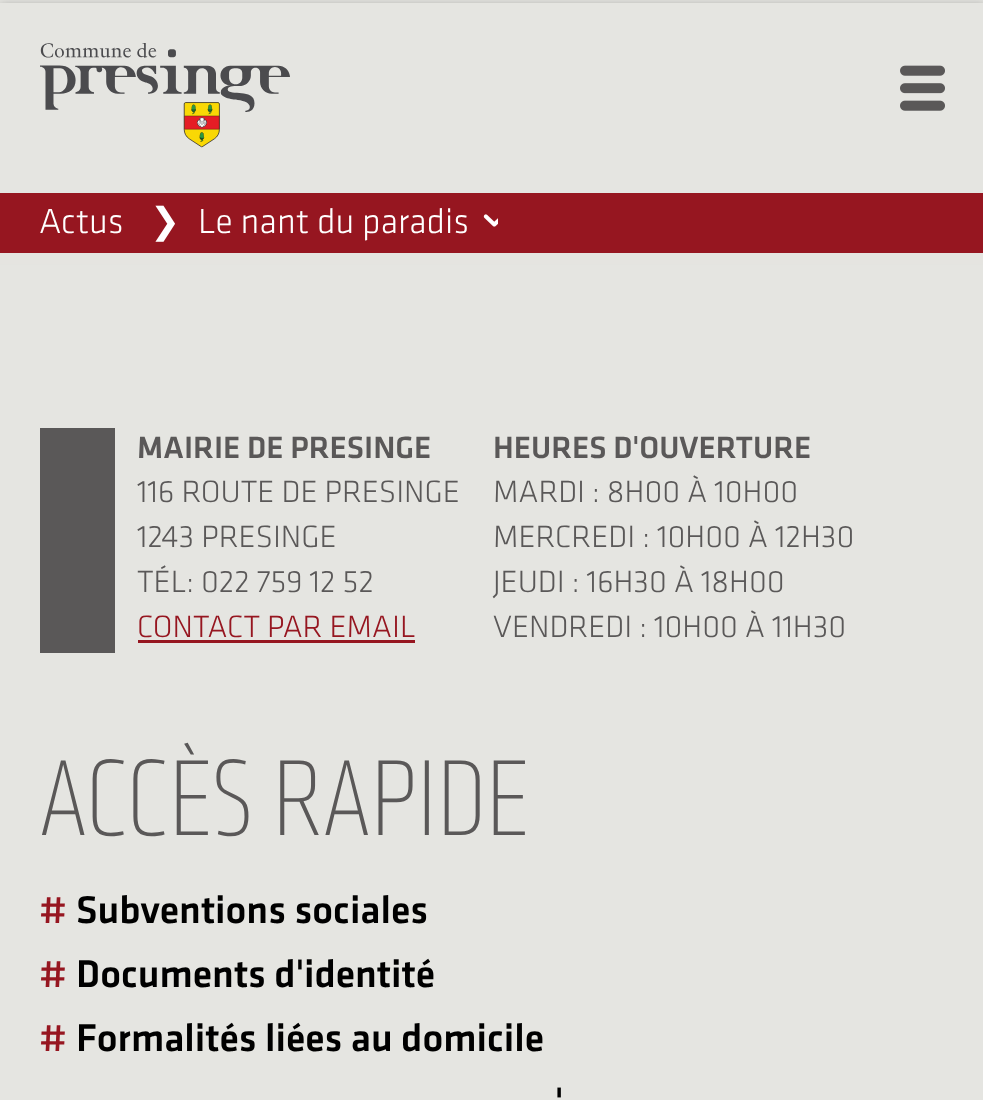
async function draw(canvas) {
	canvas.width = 983;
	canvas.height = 1100;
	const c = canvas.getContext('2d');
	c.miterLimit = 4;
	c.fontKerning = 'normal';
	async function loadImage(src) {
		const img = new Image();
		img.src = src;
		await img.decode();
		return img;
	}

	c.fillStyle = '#e5e5e1';
	c.fillRect(0, 0, 983, 1100);
	c.fillStyle = '#0000004d';
	c.filter = 'blur(5px)';
	c.beginPath();
	c.rect(0, 5, 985, 250);
	c.fill();
	c.filter = 'none';
	c.fillStyle = '#e5e5e1';
	c.fillRect(0, 3, 983, 190);
	c.drawImage(await loadImage('img1.png'), 40, 43, 250, 105);
	c.drawImage(await loadImage('img2.png'), 900, 65, 45, 46);
	c.fillStyle = '#961620';
	c.fillRect(0, 193, 983, 60);
	c.font = '300 36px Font';
	c.fillStyle = '#fff';
	c.fillText('Actus', 39, 233);
	c.font = '36px DejaVu Sans';
	c.fillText('❯', 150, 233);
	c.font = '300 36px Font';
	c.fillText('Le nant du paradis', 198, 233);
	c.drawImage(await loadImage('img3.png'), 483, 214, 15, 13);
	c.fillStyle = '#e5e4e0';
	c.fillRect(0, 253, 983, 11);
	c.fillStyle = '#5a5858';
	c.fillRect(40, 428, 75, 225);
	c.font = '500 32px Font';
	c.fillText('MAIRIE DE PRESINGE', 137, 458);
	c.font = '300 32px Font';
	for (const [text, x, y] of [
		['116 ROUTE DE PRESINGE', 137, 502],
		['1243 PRESINGE', 137, 547],
		['TÉL: 022 759 12 52', 137, 592],
	]) {
		c.fillText(text, x, y);
	}
	c.fillStyle = '#961620';
	c.fillText('CONTACT PAR EMAIL', 137, 637);
	c.fillRect(138, 640, 277, 3);
	c.font = '500 32px Font';
	c.fillStyle = '#5a5858';
	c.fillText('HEURES D\'OUVERTURE', 493, 458);
	c.font = '300 32px Font';
	for (const [text, x, y] of [
		['MARDI : 8H00 À 10H00', 493, 502],
		['MERCREDI : 10H00 À 12H30', 493, 547],
		['JEUDI : 16H30 À 18H00', 493, 592],
		['VENDREDI : 10H00 À 11H30', 493, 637],
	]) {
		c.fillText(text, x, y);
	}
	c.font = '300 112px "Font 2"';
	c.fillText('ACCÈS RAPIDE', 39, 835);
	c.font = '500 40px Font';
	c.fillStyle = '#961620';
	c.fillText('#', 39, 923);
	c.fillStyle = '#000';
	c.fillText('Subventions sociales', 76, 923);
	c.fillStyle = '#961620';
	c.fillText('#', 39, 987);
	c.fillStyle = '#000';
	c.fillText('Documents d\'identité', 76, 987);
	c.fillStyle = '#961620';
	c.fillText('#', 39, 1051);
	c.fillStyle = '#000';
	c.fillText('Formalités liées au domicile', 76, 1051);
	c.fillText('\'', 555, 1115);
}

draw(document.querySelector('canvas'));
